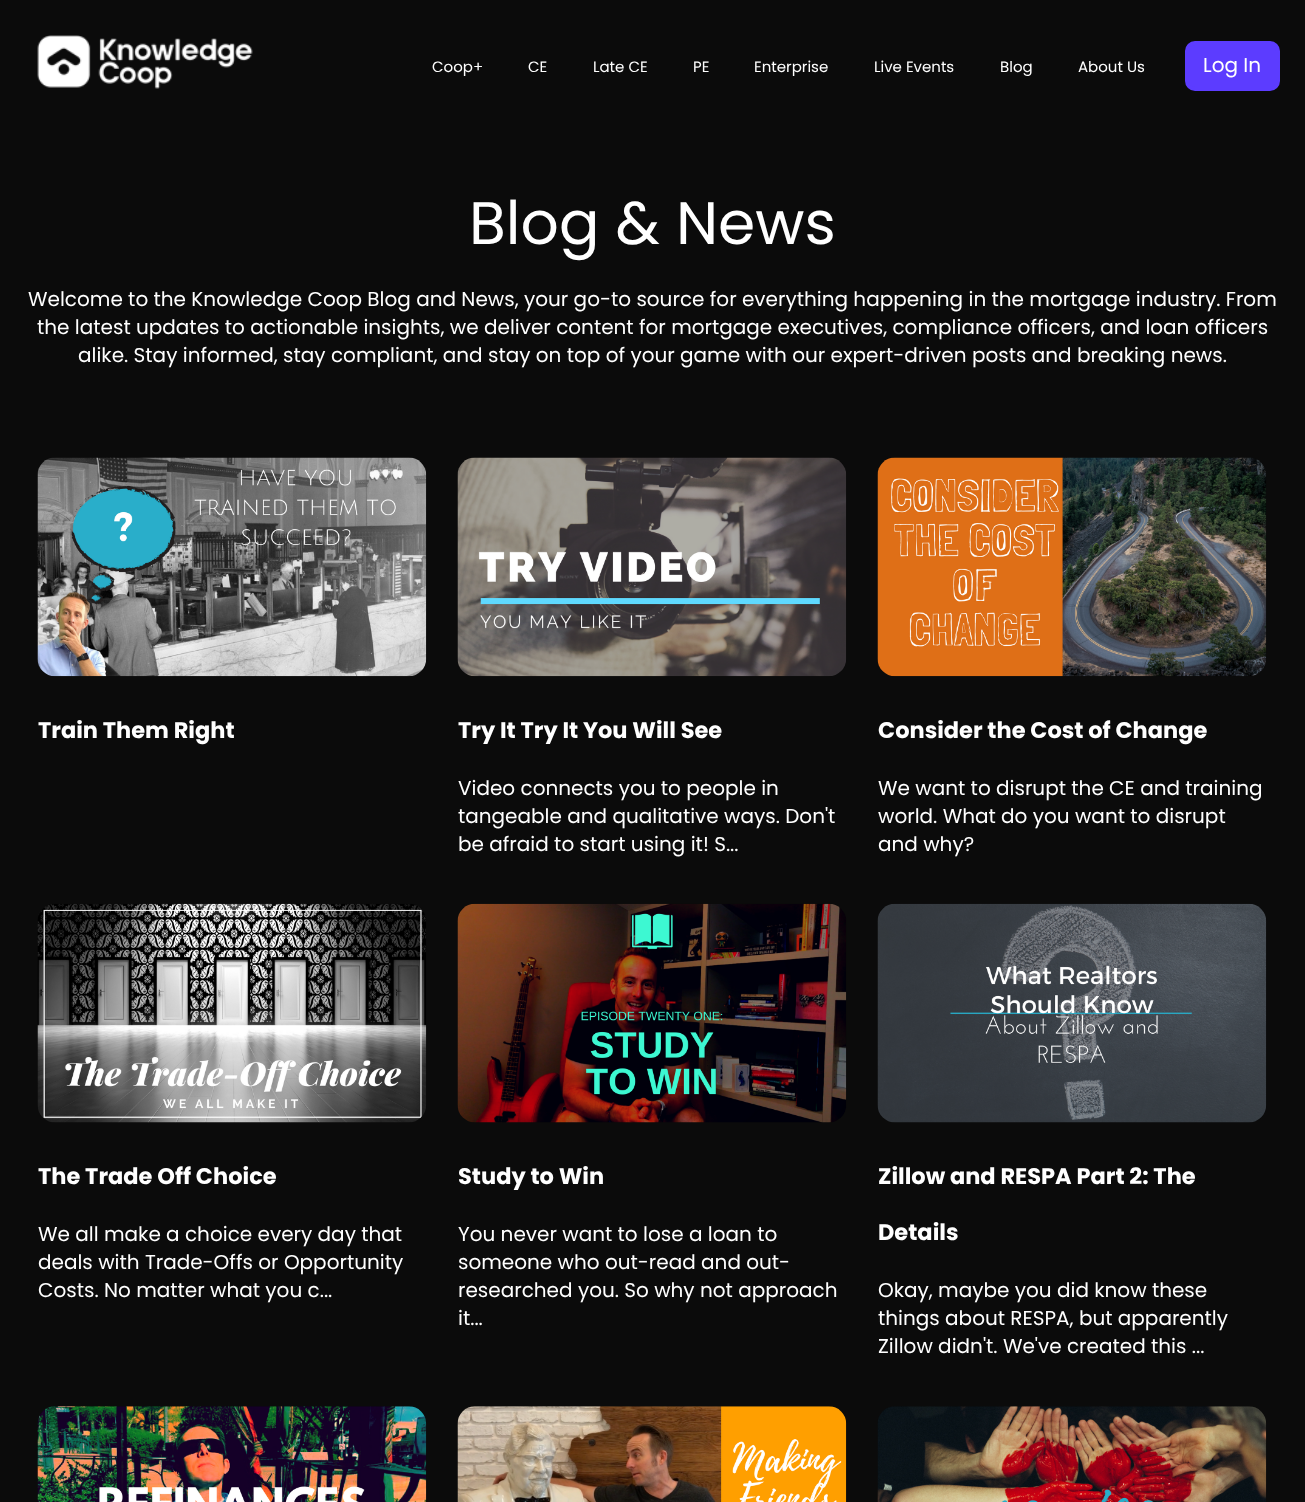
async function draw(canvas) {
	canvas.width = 1305;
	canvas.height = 1502;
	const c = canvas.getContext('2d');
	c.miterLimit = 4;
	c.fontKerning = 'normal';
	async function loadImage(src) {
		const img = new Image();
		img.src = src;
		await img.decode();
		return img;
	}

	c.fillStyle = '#0b0b0b';
	c.fillRect(0, 0, 1305, 1502);
	c.drawImage(await loadImage('img1.png'), 37, 35, 216, 54);
	c.font = '15px Poppins';
	c.fillStyle = '#fff';
	for (const [text, x, y] of [
		['Coop+', 432, 72],
		['CE', 528, 72],
		['Late CE', 593, 72],
		['PE', 693, 72],
		['Enterprise', 754, 72],
		['Live Events', 874, 72],
		['Blog', 1000, 72],
		['About Us', 1078, 72],
	]) {
		c.fillText(text, x, y);
	}
	c.fillStyle = '#5c3cff';
	c.beginPath();
	c.roundRect(1187, 43, 91, 46, 8);
	c.fill();
	c.strokeStyle = '#5c3cff';
	c.lineWidth = 4;
	c.stroke();
	c.font = '20px Poppins';
	c.fillStyle = '#fff';
	c.fillText('Log In', 1203, 72);
	c.font = '60px Poppins';
	c.fillText('Blog & News', 469, 244);
	c.font = '20px Poppins';
	for (const [text, x, y] of [
		['Welcome to the Knowledge Coop Blog and News, your go-to source for everything happening in the mortgage industry. From', 28, 306],
		['the latest updates to actionable insights, we deliver content for mortgage executives, compliance officers, and loan officers', 37, 334],
		['alike. Stay informed, stay compliant, and stay on top of your game with our expert-driven posts and breaking news.', 78, 362],
	]) {
		c.fillText(text, x, y);
	}
	c.drawImage(await loadImage('img2.png'), 37, 457, 390, 220);
	c.font = 'bold 22.5px Poppins';
	c.fillText('Train Them Right', 38, 738);
	c.drawImage(await loadImage('img3.png'), 457, 457, 390, 220);
	c.fillText('Try It Try It You Will See', 458, 738);
	c.font = '20px Poppins';
	for (const [text, x, y] of [
		['Video connects you to people in', 458, 795],
		['tangeable and qualitative ways. Don\'t', 458, 823],
		['be afraid to start using it! S...', 458, 851],
	]) {
		c.fillText(text, x, y);
	}
	c.drawImage(await loadImage('img4.png'), 877, 457, 390, 220);
	c.font = 'bold 22.5px Poppins';
	c.fillText('Consider the Cost of Change', 878, 738);
	c.font = '20px Poppins';
	for (const [text, x, y] of [
		['We want to disrupt the CE and training', 878, 795],
		['world. What do you want to disrupt', 878, 823],
		['and why?', 878, 851],
	]) {
		c.fillText(text, x, y);
	}
	c.drawImage(await loadImage('img5.png'), 37, 903, 390, 220);
	c.font = 'bold 22.5px Poppins';
	c.fillText('The Trade Off Choice', 38, 1184);
	c.font = '20px Poppins';
	for (const [text, x, y] of [
		['We all make a choice every day that', 38, 1241],
		['deals with Trade-Offs or Opportunity', 38, 1269],
		['Costs. No matter what you c...', 38, 1297],
	]) {
		c.fillText(text, x, y);
	}
	c.drawImage(await loadImage('img6.png'), 457, 903, 390, 220);
	c.font = 'bold 22.5px Poppins';
	c.fillText('Study to Win', 458, 1184);
	c.font = '20px Poppins';
	for (const [text, x, y] of [
		['You never want to lose a loan to', 458, 1241],
		['someone who out-read and out-', 458, 1269],
		['researched you. So why not approach', 458, 1297],
		['it...', 458, 1325],
	]) {
		c.fillText(text, x, y);
	}
	c.drawImage(await loadImage('img7.png'), 877, 903, 390, 220);
	c.font = 'bold 22.5px Poppins';
	c.fillText('Zillow and RESPA Part 2: The', 878, 1184);
	c.fillText('Details', 878, 1240);
	c.font = '20px Poppins';
	for (const [text, x, y] of [
		['Okay, maybe you did know these', 878, 1297],
		['things about RESPA, but apparently', 878, 1325],
		['Zillow didn\'t. We\'ve created this ...', 878, 1353],
	]) {
		c.fillText(text, x, y);
	}
	c.drawImage(await loadImage('img8.png'), 37, 1406, 390, 96);
	c.drawImage(await loadImage('img9.png'), 457, 1406, 390, 96);
	c.drawImage(await loadImage('img10.png'), 877, 1406, 390, 96);
}

draw(document.querySelector('canvas'));
